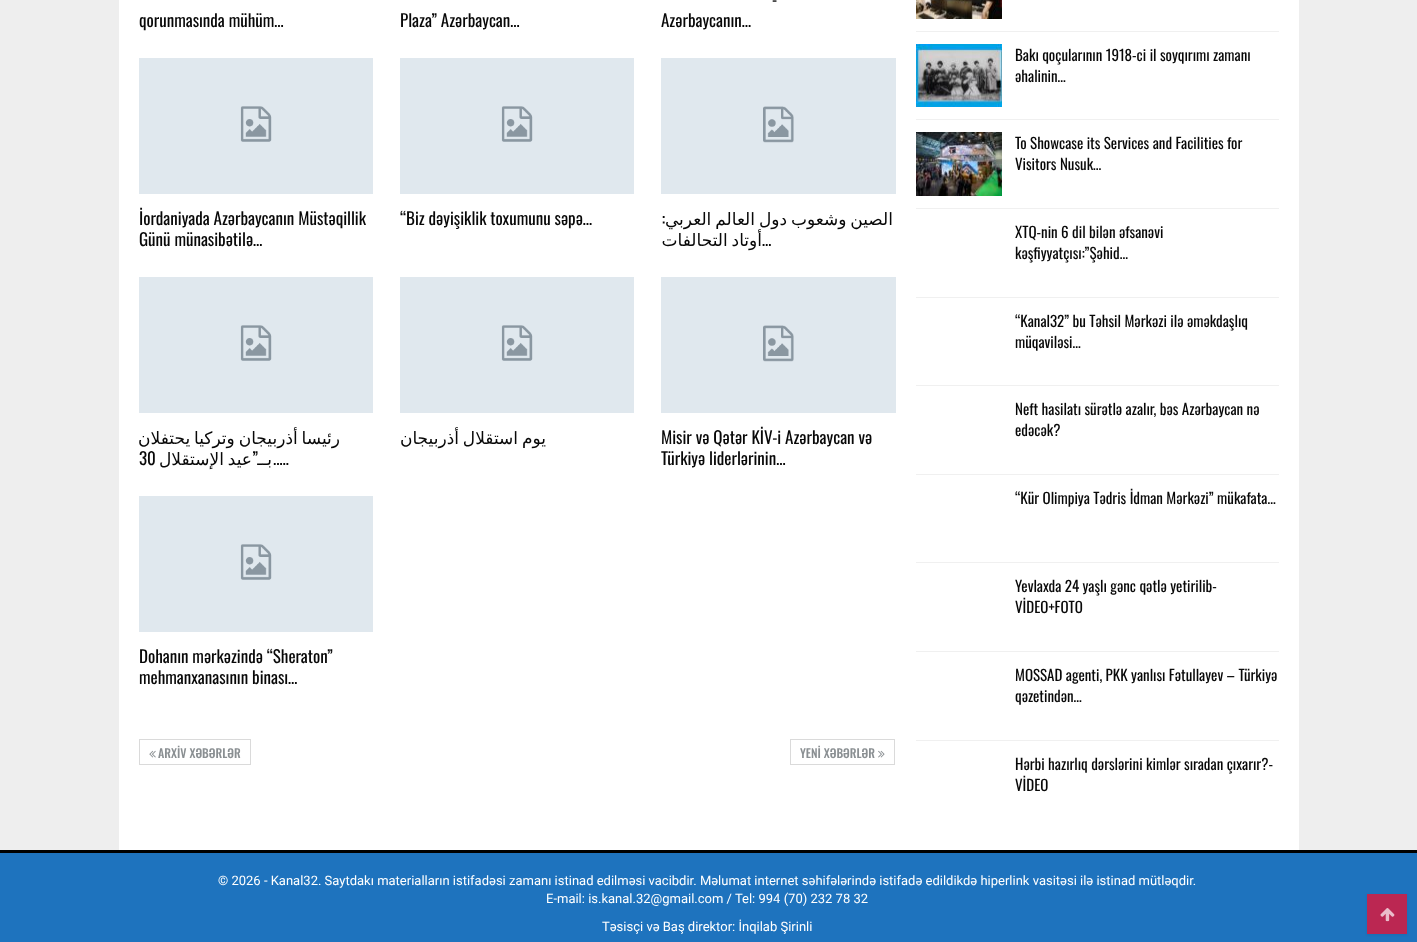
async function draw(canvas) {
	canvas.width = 1417;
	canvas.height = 942;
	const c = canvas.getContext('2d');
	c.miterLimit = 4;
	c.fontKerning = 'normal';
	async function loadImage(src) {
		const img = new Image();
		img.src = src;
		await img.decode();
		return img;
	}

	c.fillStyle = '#eee';
	c.fillRect(0, 0, 1417, 942);
	c.fillStyle = '#fff';
	c.fillRect(119, 0, 1180, 850);
	c.font = '17px Oswald';
	c.fillStyle = '#080808';
	for (const [text, x, y] of [
		['qorunmasında mühüm…', 139, 27],
		['Plaza” Azərbaycan…', 400, 27],
		['-', 772, 6],
		['Azərbaycanın…', 661, 27],
	]) {
		c.fillText(text, x, y);
	}
	c.drawImage(await loadImage('img1.png'), 139, 58, 234, 136);
	c.fillText('İordaniyada Azərbaycanın Müstəqillik', 139, 225);
	c.fillText('Günü münasibətilə…', 139, 246);
	c.drawImage(await loadImage('img1.png'), 400, 58, 234, 136);
	c.fillText('“Biz dəyişiklik toxumunu səpə…', 400, 225);
	c.drawImage(await loadImage('img2.png'), 661, 58, 235, 136);
	c.direction = 'rtl';
	c.fillText(':', 665, 225);
	c.wordSpacing = '-1.5px';
	c.font = '17px DejaVu Sans';
	c.fillText('الصين وشعوب دول العالم العربي', 893, 225);
	c.fillText('أوتاد التحالفات', 762, 246);
	c.wordSpacing = '0px';
	c.direction = 'ltr';
	c.font = '17px Oswald';
	c.fillText('…', 762, 246);
	c.drawImage(await loadImage('img1.png'), 139, 277, 234, 136);
	c.wordSpacing = '-1.5px';
	c.direction = 'rtl';
	c.font = '17px DejaVu Sans';
	c.fillText('رئيسا أذربيجان وتركيا يحتفلان', 340, 444);
	c.wordSpacing = '0px';
	c.direction = 'ltr';
	c.font = '17px Oswald';
	c.fillText('30', 139, 465);
	c.wordSpacing = '-1.5px';
	c.direction = 'rtl';
	c.font = '17px DejaVu Sans';
	c.fillText('عيد الإستقلال', 252, 465);
	c.wordSpacing = '0px';
	c.font = '17px Oswald';
	c.fillText('”', 258, 465);
	c.font = '17px DejaVu Sans';
	c.fillText('بــ', 272, 465);
	c.direction = 'ltr';
	c.font = '17px Oswald';
	c.fillText('..…', 273, 465);
	c.drawImage(await loadImage('img1.png'), 400, 277, 234, 136);
	c.wordSpacing = '-1.5px';
	c.direction = 'rtl';
	c.font = '17px DejaVu Sans';
	c.fillText('يوم استقلال أذربيجان', 546, 444);
	c.drawImage(await loadImage('img2.png'), 661, 277, 235, 136);
	c.wordSpacing = '0px';
	c.direction = 'ltr';
	c.font = '17px Oswald';
	c.fillText('Misir və Qətər KİV-i Azərbaycan və', 661, 444);
	c.fillText('Türkiyə liderlərinin…', 661, 465);
	c.drawImage(await loadImage('img1.png'), 139, 496, 234, 136);
	c.fillText('Dohanın mərkəzində “Sheraton”', 139, 663);
	c.fillText('mehmanxanasının binası…', 139, 684);
	c.strokeStyle = '#dadada';
	c.strokeRect(139.5, 739.5, 111, 25);
	c.drawImage(await loadImage('img3.png'), 149, 750, 7, 8);
	c.font = '500 12px Oswald';
	c.fillStyle = '#8a8f92';
	c.fillText('ARXİV XƏBƏRLƏR', 158, 758);
	c.strokeRect(790.5, 739.5, 104, 25);
	c.fillText('YENİ XƏBƏRLƏR', 800, 758);
	c.drawImage(await loadImage('img4.png'), 878, 750, 7, 8);
	c.fillStyle = '#f0f0f0';
	c.fillRect(916, 31, 363, 1);
	c.drawImage(await loadImage('img5.png'), 916, 0, 86, 19);
	c.fillRect(916, 119, 363, 1);
	c.drawImage(await loadImage('img6.png'), 916, 44, 86, 63);
	c.font = '15px Oswald';
	c.fillStyle = '#080808';
	c.fillText('Bakı qoçularının 1918-ci il soyqırımı zamanı', 1015, 61);
	c.fillText('əhalinin…', 1015, 82);
	c.fillStyle = '#f0f0f0';
	c.fillRect(916, 208, 363, 1);
	c.drawImage(await loadImage('img7.png'), 916, 132, 86, 64);
	c.fillStyle = '#080808';
	c.fillText('To Showcase its Services and Facilities for', 1015, 149);
	c.fillText('Visitors Nusuk…', 1015, 170);
	c.fillStyle = '#f0f0f0';
	c.fillRect(916, 297, 363, 1);
	c.fillStyle = '#080808';
	c.fillText('XTQ-nin 6 dil bilən əfsanəvi', 1015, 238);
	c.fillText('kəşfiyyatçısı:”Şəhid…', 1015, 259);
	c.fillStyle = '#f0f0f0';
	c.fillRect(916, 385, 363, 1);
	c.fillStyle = '#080808';
	c.fillText('“Kanal32” bu Təhsil Mərkəzi ilə əməkdaşlıq', 1015, 327);
	c.fillText('müqaviləsi…', 1015, 348);
	c.fillStyle = '#f0f0f0';
	c.fillRect(916, 474, 363, 1);
	c.fillStyle = '#080808';
	c.fillText('Neft hasilatı sürətlə azalır, bəs Azərbaycan nə', 1015, 415);
	c.fillText('edəcək?', 1015, 436);
	c.fillStyle = '#f0f0f0';
	c.fillRect(916, 562, 363, 1);
	c.fillStyle = '#080808';
	c.fillText('“Kür Olimpiya Tədris İdman Mərkəzi” mükafata…', 1015, 504);
	c.fillStyle = '#f0f0f0';
	c.fillRect(916, 651, 363, 1);
	c.fillStyle = '#080808';
	c.fillText('Yevlaxda 24 yaşlı gənc qətlə yetirilib-', 1015, 592);
	c.fillText('VİDEO+FOTO', 1015, 613);
	c.fillStyle = '#f0f0f0';
	c.fillRect(916, 740, 363, 1);
	c.fillStyle = '#080808';
	for (const [text, x, y] of [
		['MOSSAD agenti, PKK yanlısı Fətullayev – Türkiyə', 1015, 681],
		['qəzetindən…', 1015, 702],
		['Hərbi hazırlıq dərslərini kimlər sıradan çıxarır?-', 1015, 770],
		['VİDEO', 1015, 791],
	]) {
		c.fillText(text, x, y);
	}
	c.fillStyle = '#1e73be';
	c.fillRect(0, 853, 1417, 89);
	c.fillStyle = '#000';
	c.fillRect(0, 850, 1417, 3);
	c.font = '13px Roboto';
	c.fillStyle = '#fff';
	for (const [text, x, y] of [
		['© 2026 - Kanal32. Saytdakı materialların istifadəsi zamanı istinad edilməsi vacibdir. Məlumat internet səhifələrində istifadə edildikdə hiperlink vasitəsi ilə istinad mütləqdir.', 218, 885],
		['E-mail: is.kanal.32@gmail.com / Tel: 994 (70) 232 78 32', 546, 903],
		['Təsisçi və Baş direktor: İnqilab Şirinli', 602, 931],
	]) {
		c.fillText(text, x, y);
	}
	c.fillStyle = '#09233917';
	c.filter = 'blur(1px)';
	c.beginPath();
	c.rect(1367, 895, 40, 40);
	c.fill();
	c.filter = 'none';
	c.fillStyle = '#bb2752';
	c.fillRect(1367, 894, 40, 40);
	c.drawImage(await loadImage('img8.png'), 1380, 908, 15, 14);
}

draw(document.querySelector('canvas'));
